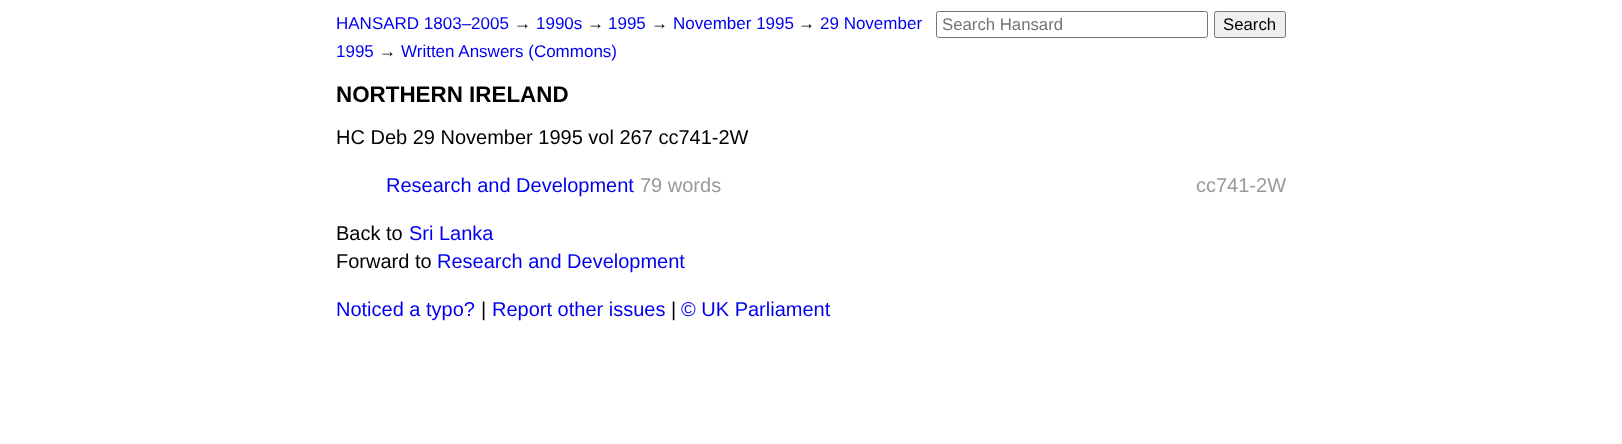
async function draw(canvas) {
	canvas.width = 1622;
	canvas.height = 444;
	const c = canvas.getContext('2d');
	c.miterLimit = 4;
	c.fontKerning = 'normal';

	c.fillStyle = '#fff';
	c.fillRect(0, 0, 1622, 444);
	c.font = '17px Liberation Sans';
	c.fillStyle = '#00e';
	c.fillText('HANSARD 1803–2005', 336, 29);
	c.fillStyle = '#000';
	c.fillText('→', 514, 29);
	c.fillStyle = '#00e';
	c.fillText('1990s', 536, 29);
	c.fillStyle = '#000';
	c.fillText('→', 587, 29);
	c.fillStyle = '#00e';
	c.fillText('1995', 608, 29);
	c.fillStyle = '#000';
	c.fillText('→', 651, 29);
	c.fillStyle = '#00e';
	c.fillText('November 1995', 673, 29);
	c.fillStyle = '#000';
	c.fillText('→', 798, 29);
	c.fillStyle = '#00e';
	c.fillText('29 November', 820, 29);
	c.fillText('1995', 336, 57);
	c.fillStyle = '#000';
	c.fillText('→', 379, 57);
	c.fillStyle = '#00e';
	c.fillText('Written Answers (Commons)', 401, 57);
	c.beginPath();
	c.roundRect(936.5, 11.5, 271, 26, 2);
	c.strokeStyle = '#767676';
	c.stroke();
	c.font = '16.75px Liberation Sans';
	c.fillStyle = '#757575';
	c.fillText('Search Hansard', 942, 30);
	c.fillStyle = '#efefef';
	c.beginPath();
	c.roundRect(1214.5, 11.5, 71, 26, 2);
	c.fill();
	c.stroke();
	c.fillStyle = '#000';
	c.fillText('Search', 1223, 30);
	c.font = 'bold 22.4px Liberation Sans';
	c.fillText('NORTHERN IRELAND', 336, 102);
	c.font = '20px Liberation Sans';
	c.fillText('HC Deb 29 November 1995 vol 267 cc741-2W', 336, 144);
	c.fillStyle = '#00e';
	c.fillText('Research and Development', 386, 192);
	c.fillStyle = '#999';
	c.fillText('79 words', 640, 192);
	c.fillText('cc741-2W', 1196, 192);
	c.fillStyle = '#000';
	c.fillText('Back to', 336, 240);
	c.fillStyle = '#00e';
	c.fillText('Sri Lanka', 409, 240);
	c.fillStyle = '#000';
	c.fillText('Forward to', 336, 268);
	c.fillStyle = '#00e';
	c.fillText('Research and Development', 437, 268);
	c.fillText('Noticed a typo?', 336, 316);
	c.fillStyle = '#000';
	c.fillText('|', 481, 316);
	c.fillStyle = '#00e';
	c.fillText('Report other issues', 492, 316);
	c.fillStyle = '#000';
	c.fillText('|', 671, 316);
	c.fillStyle = '#00e';
	c.fillText('© UK Parliament', 681, 316);
}

draw(document.querySelector('canvas'));
